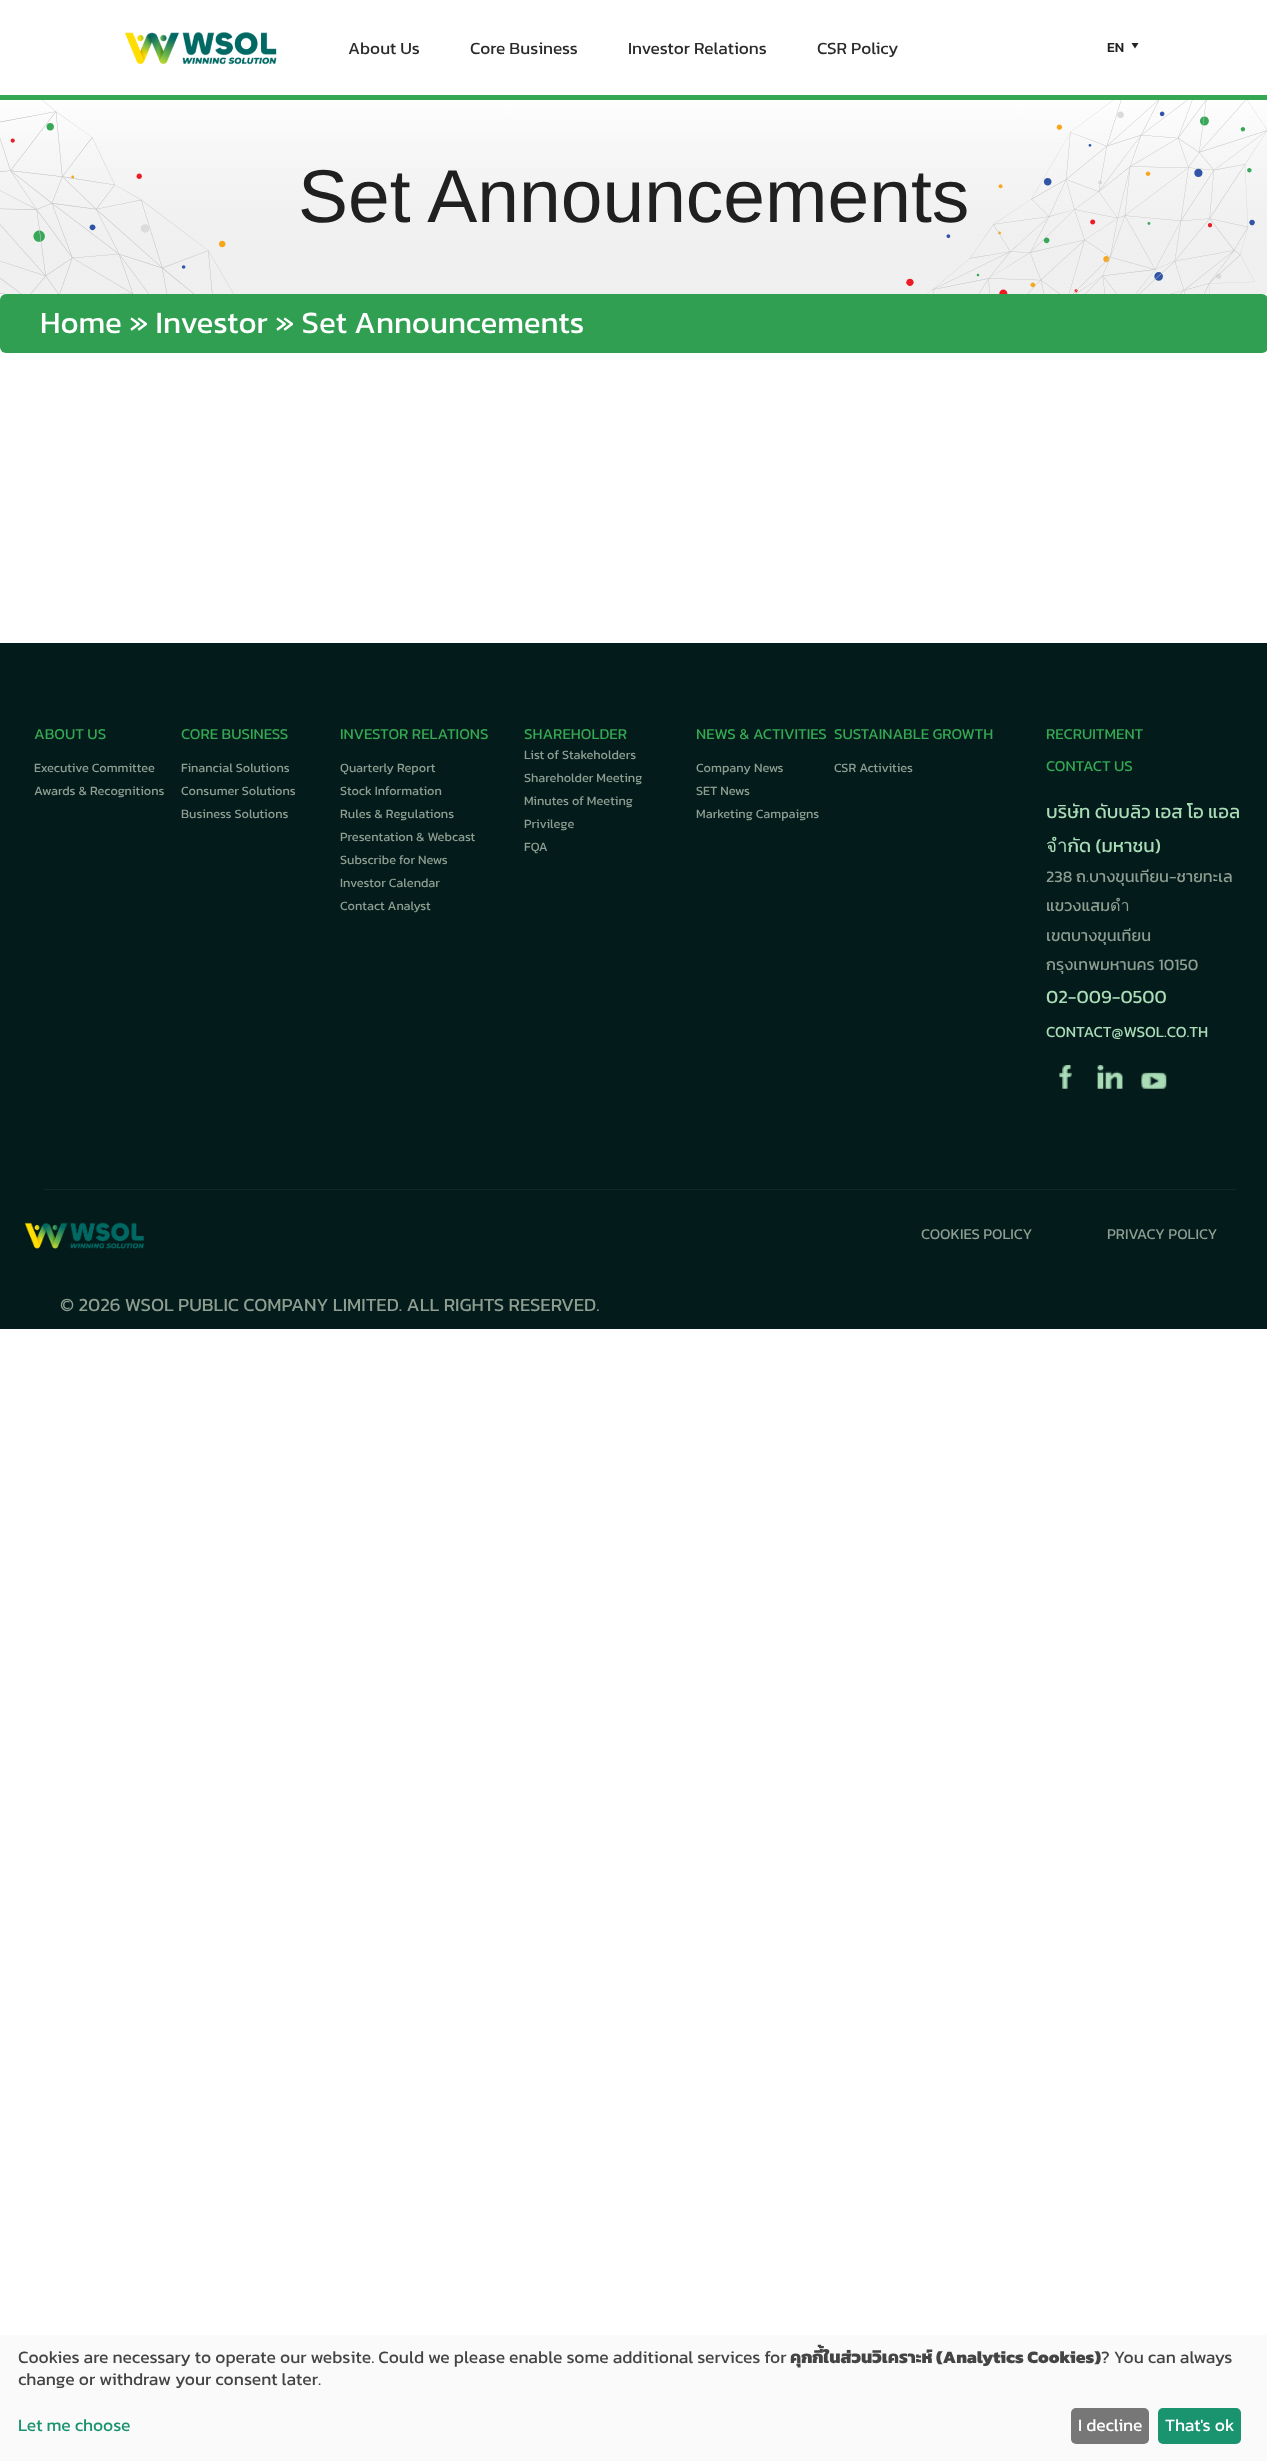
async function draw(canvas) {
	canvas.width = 1267;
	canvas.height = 2461;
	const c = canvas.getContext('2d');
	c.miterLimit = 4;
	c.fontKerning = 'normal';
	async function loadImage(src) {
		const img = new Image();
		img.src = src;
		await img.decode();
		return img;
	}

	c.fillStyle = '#fff';
	c.fillRect(0, 0, 1267, 2461);
	c.fillStyle = '#34a852';
	c.fillRect(0, 95, 1267, 5);
	c.drawImage(await loadImage('img1.png'), 125, 32, 152, 33);
	c.font = '17.25px Kanit';
	c.fillStyle = '#2a2a2a';
	for (const [text, x, y] of [
		['About Us', 348, 54],
		['Core Business', 470, 54],
		['Investor Relations', 628, 54],
		['CSR Policy', 817, 54],
	]) {
		c.fillText(text, x, y);
	}
	c.font = '500 14px Kanit';
	c.fillStyle = '#202020';
	c.fillText('EN', 1107, 52);
	c.fillStyle = '#222';
	c.beginPath();
	c.moveTo(1138.5, 43);
	c.lineTo(1135, 48.5);
	c.lineTo(1131.5, 43);
	c.closePath();
	c.fill();
	c.drawImage(await loadImage('img2.png'), 0, 100, 1267, 194);
	c.font = '75px Liberation Sans';
	c.fillStyle = '#202020';
	c.fillText('Set Announcements', 298, 222);
	c.fillStyle = '#319f51';
	c.beginPath();
	c.roundRect(0, 294, 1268, 59, 6);
	c.fill();
	c.font = '31.25px Kanit';
	c.fillStyle = '#fff';
	c.fillText('Home » Investor » Set Announcements', 40, 333);
	c.fillStyle = '#041b1b';
	c.fillRect(0, 643, 1267, 686);
	c.font = '15.25px Kanit';
	c.fillStyle = '#34a852';
	c.fillText('ABOUT US', 34, 739);
	c.font = '12.75px Kanit';
	c.fillStyle = '#8d9e91';
	c.fillText('Executive Committee', 34, 772);
	c.fillText('Awards & Recognitions', 34, 795);
	c.font = '15.25px Kanit';
	c.fillStyle = '#34a852';
	c.fillText('CORE BUSINESS', 181, 739);
	c.font = '12.75px Kanit';
	c.fillStyle = '#8d9e91';
	for (const [text, x, y] of [
		['Financial Solutions', 181, 772],
		['Consumer Solutions', 181, 795],
		['Business Solutions', 181, 818],
	]) {
		c.fillText(text, x, y);
	}
	c.font = '15.25px Kanit';
	c.fillStyle = '#34a852';
	c.fillText('INVESTOR RELATIONS', 340, 739);
	c.font = '12.75px Kanit';
	c.fillStyle = '#8d9e91';
	for (const [text, x, y] of [
		['Quarterly Report', 340, 772],
		['Stock Information', 340, 795],
		['Rules & Regulations', 340, 818],
		['Presentation & Webcast', 340, 841],
		['Subscribe for News', 340, 864],
		['Investor Calendar', 340, 887],
		['Contact Analyst', 340, 910],
	]) {
		c.fillText(text, x, y);
	}
	c.font = '15.25px Kanit';
	c.fillStyle = '#34a852';
	c.fillText('SHAREHOLDER', 524, 739);
	c.font = '12.75px Kanit';
	c.fillStyle = '#8d9e91';
	for (const [text, x, y] of [
		['List of Stakeholders', 524, 759],
		['Shareholder Meeting', 524, 782],
		['Minutes of Meeting', 524, 805],
		['Privilege', 524, 828],
		['FQA', 524, 851],
	]) {
		c.fillText(text, x, y);
	}
	c.font = '15.25px Kanit';
	c.fillStyle = '#34a852';
	c.fillText('NEWS & ACTIVITIES', 696, 739);
	c.font = '12.75px Kanit';
	c.fillStyle = '#8d9e91';
	for (const [text, x, y] of [
		['Company News', 696, 772],
		['SET News', 696, 795],
		['Marketing Campaigns', 696, 818],
	]) {
		c.fillText(text, x, y);
	}
	c.font = '15.25px Kanit';
	c.fillStyle = '#34a852';
	c.fillText('SUSTAINABLE GROWTH', 834, 739);
	c.font = '12.75px Kanit';
	c.fillStyle = '#8d9e91';
	c.fillText('CSR Activities', 834, 772);
	c.font = '15.25px Kanit';
	c.fillStyle = '#34a852';
	c.fillText('RECRUITMENT', 1046, 739);
	c.fillText('CONTACT US', 1046, 771);
	c.font = '18.75px Kanit';
	c.fillStyle = '#aaddb7';
	c.fillText('บริษัท ดับบลิว เอส โอ แอล', 1046, 818);
	c.fillText('จำกัด (มหาชน)', 1046, 852);
	c.font = '16.25px Kanit';
	c.fillStyle = '#8d9e91';
	for (const [text, x, y] of [
		['238 ถ.บางขุนเทียน-ชายทะเล', 1046, 882],
		['แขวงแสมดำ', 1046, 911],
		['เขตบางขุนเทียน', 1046, 941],
		['กรุงเทพมหานคร 10150', 1046, 970],
	]) {
		c.fillText(text, x, y);
	}
	c.font = '18.75px Kanit';
	c.fillStyle = '#aaddb7';
	c.fillText('02-009-0500', 1046, 1003);
	c.font = '15.5px Kanit';
	c.fillText('CONTACT@WSOL.CO.TH', 1046, 1037);
	c.drawImage(await loadImage('img3.png'), 1059, 1065, 13, 24);
	c.drawImage(await loadImage('img4.png'), 1097, 1065, 26, 24);
	c.drawImage(await loadImage('img5.png'), 1141, 1072, 26, 17);
	c.fillStyle = '#0d2b2b';
	c.fillRect(44, 1189, 1192, 1);
	c.font = '15px Kanit';
	c.fillStyle = '#8d9e91';
	c.fillText('COOKIES POLICY', 921, 1239);
	c.fillText('PRIVACY POLICY', 1107, 1239);
	c.drawImage(await loadImage('img6.png'), 25, 1222, 119, 27);
	c.font = '18.75px Kanit';
	c.fillText('© 2026 WSOL PUBLIC COMPANY LIMITED. ALL RIGHTS RESERVED.', 60, 1311);
	c.fillStyle = '#fafafa';
	c.fillRect(0, 2335, 1267, 126);
	c.font = '17.5px Kanit';
	c.fillStyle = '#444';
	c.fillText('Cookies are necessary to operate our website. Could we please enable some additional services for', 18, 2363);
	c.font = '800 17.5px Kanit';
	c.fillText('คุกกี้ในส่วนวิเคราะห์ (Analytics Cookies)', 790, 2363);
	c.font = '17.5px Kanit';
	c.fillText('? You can always', 1101, 2363);
	c.fillText('change or withdraw your consent later.', 18, 2385);
	c.fillStyle = '#1a936f';
	c.fillText('Let me choose', 18, 2431);
	c.fillStyle = '#777';
	c.beginPath();
	c.roundRect(1071, 2408, 78, 36, 5);
	c.fill();
	c.fillStyle = '#fff';
	c.fillText('I decline', 1078, 2431);
	c.fillStyle = '#1a936f';
	c.beginPath();
	c.roundRect(1158, 2408, 83, 36, 5);
	c.fill();
	c.fillStyle = '#fff';
	c.fillText('That\'s ok', 1165, 2431);
}

draw(document.querySelector('canvas'));
